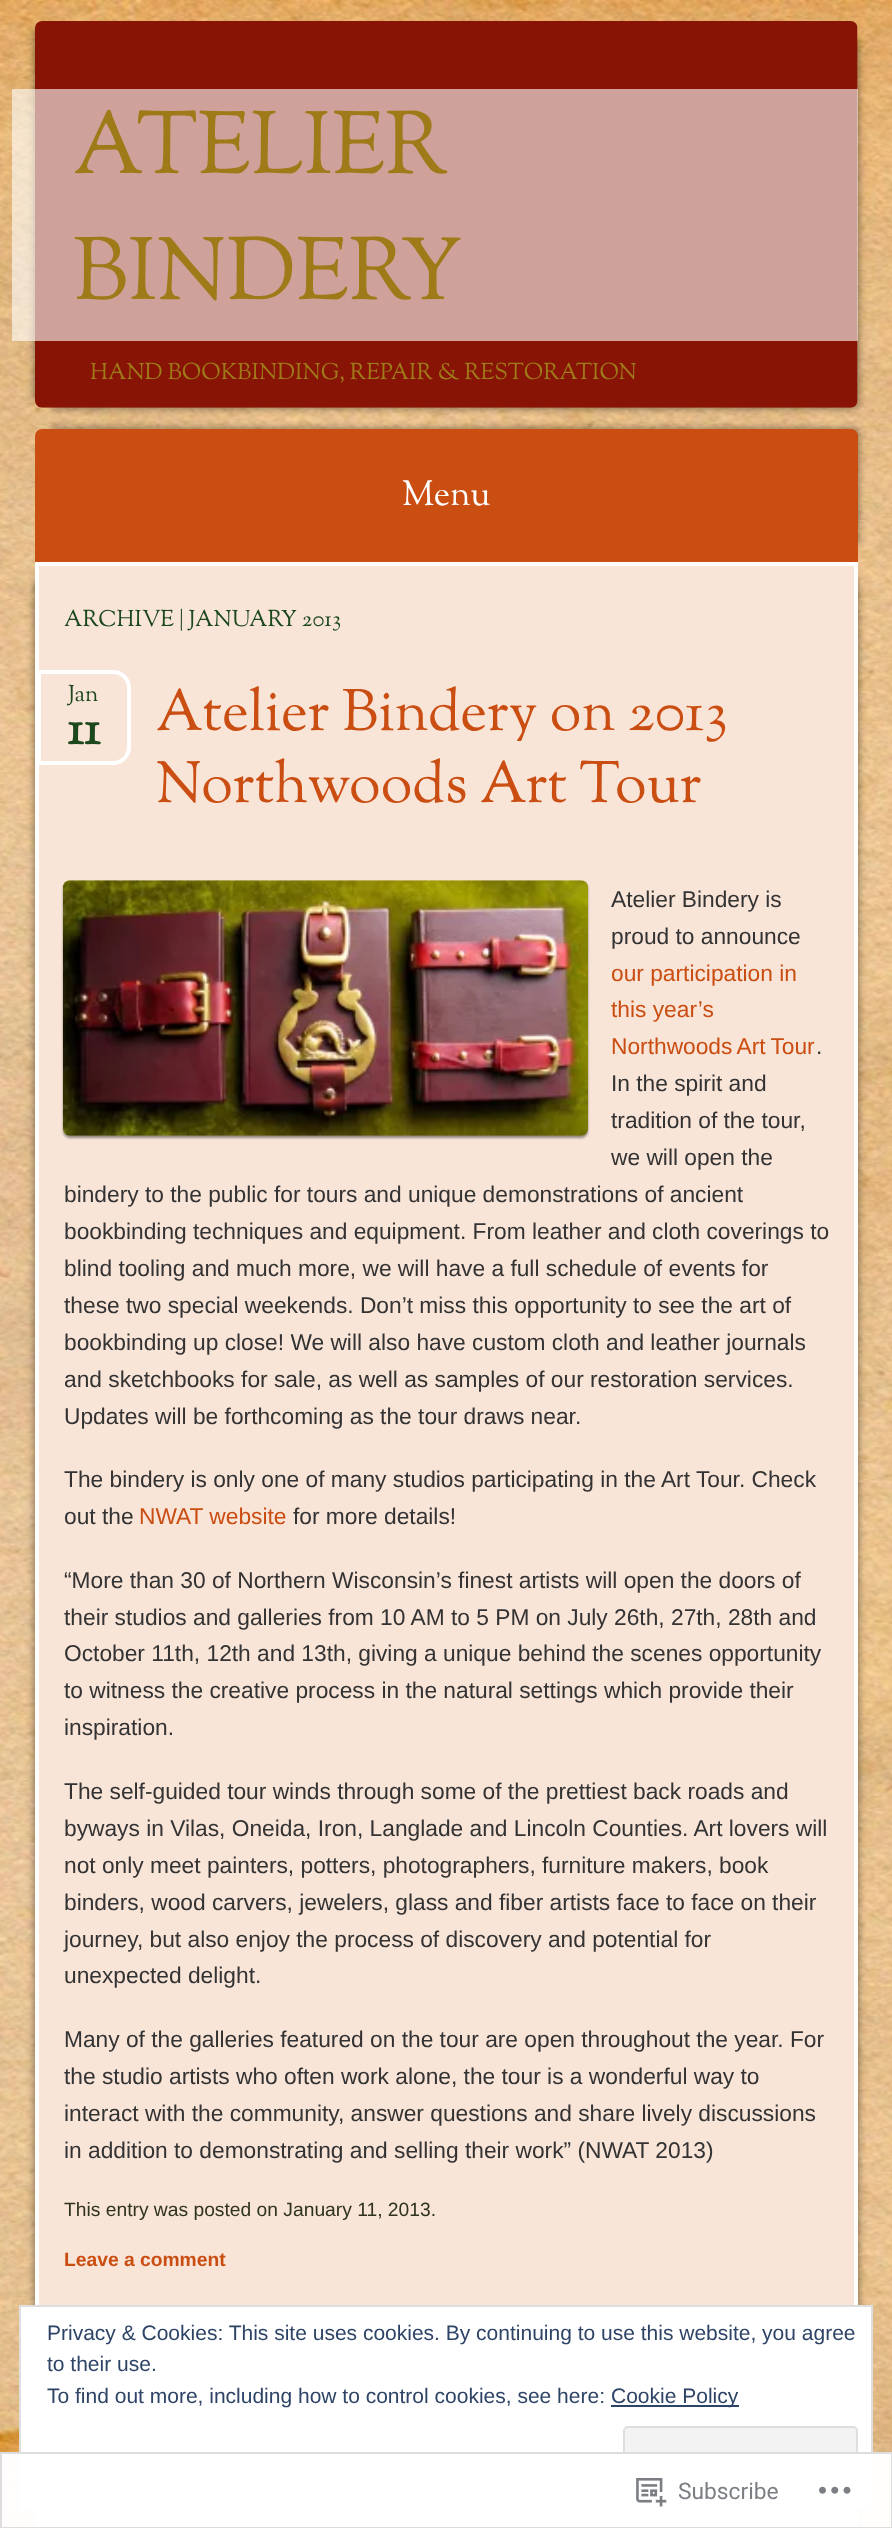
async function draw(canvas) {
	canvas.width = 892;
	canvas.height = 2528;
	const c = canvas.getContext('2d');
	c.miterLimit = 4;
	c.fontKerning = 'normal';
	async function loadImage(src) {
		const img = new Image();
		img.src = src;
		await img.decode();
		return img;
	}

	c.fillStyle = '#fff';
	c.fillRect(0, 0, 892, 2528);
	c.drawImage(await loadImage('img1.png'), 0, 0, 892, 2528);
	c.fillStyle = '#00000080';
	c.filter = 'blur(4.5px)';
	c.beginPath();
	c.rect(35, 30, 805, 369);
	c.fill();
	c.filter = 'none';
	c.filter = 'blur(4.5px)';
	c.beginPath();
	c.rect(53, 39, 805, 369);
	c.fill();
	c.filter = 'none';
	c.drawImage(await loadImage('img2.png'), 35, 21, 823, 387);
	c.fillStyle = '#ffffff99';
	c.fillRect(12, 89, 846, 252);
	c.font = '87.5px Sorts Mill Goudy';
	c.fillStyle = '#9f7a19';
	c.fillText('ATELIER', 73, 173);
	c.fillText('BINDERY', 73, 299);
	c.font = '22.75px Sorts Mill Goudy';
	c.fillText('HAND BOOKBINDING, REPAIR & RESTORATION', 90, 379);
	c.fillStyle = '#00000080';
	c.filter = 'blur(4.5px)';
	c.beginPath();
	c.rect(53, 429, 805, 115);
	c.fill();
	c.filter = 'none';
	c.fillStyle = '#ca4d11';
	c.beginPath();
	c.roundRect(35, 429, 823, 133, [7, 7, 0, 0]);
	c.fill();
	c.font = '35px Sorts Mill Goudy';
	c.fillStyle = '#fff';
	c.fillText('Menu', 402, 505);
	c.fillStyle = '#00000080';
	c.filter = 'blur(4.5px)';
	c.beginPath();
	c.rect(35, 579, 805, 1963);
	c.fill();
	c.filter = 'none';
	c.filter = 'blur(4.5px)';
	c.beginPath();
	c.rect(53, 579, 805, 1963);
	c.fill();
	c.filter = 'none';
	c.fillStyle = '#f9e4d8';
	c.beginPath();
	c.rect(37, 564, 819, 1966);
	c.fill();
	c.strokeStyle = '#fff';
	c.lineWidth = 4;
	c.stroke();
	c.font = '22.75px Sorts Mill Goudy';
	c.fillStyle = '#1c481d';
	c.fillText('ARCHIVE | JANUARY 2013', 64, 626);
	c.fillStyle = '#f9e4d8';
	c.beginPath();
	c.roundRect(39, 672, 90, 91, [0, 16, 16, 0]);
	c.fill();
	c.stroke();
	c.fillStyle = '#1c481d';
	c.fillText('Jan', 68, 701);
	c.font = 'bold 49px Sorts Mill Goudy';
	c.fillText('11', 67, 744);
	c.font = '57.75px Sorts Mill Goudy';
	c.fillStyle = '#ca4d11';
	c.fillText('Atelier Bindery on 2013', 156, 730);
	c.fillText('Northwoods Art Tour', 156, 802);
	c.fillStyle = '#00000066';
	c.filter = 'blur(1px)';
	c.beginPath();
	c.roundRect(63, 882, 525, 256, 7);
	c.fill();
	c.filter = 'none';
	c.drawImage(await loadImage('img3.png'), 63, 880, 525, 256);
	c.font = '22.75px Liberation Sans';
	c.fillStyle = '#333';
	c.fillText('Atelier Bindery is', 611, 907);
	c.fillText('proud to announce', 611, 944);
	c.fillStyle = '#ca4d11';
	c.fillText('our participation in', 611, 981);
	c.fillText('this year’s', 611, 1017);
	c.wordSpacing = '-1px';
	c.fillText('Northwoods Art Tour', 611, 1054);
	c.wordSpacing = '0px';
	c.fillStyle = '#333';
	for (const [text, x, y] of [
		['.', 816, 1054],
		['In the spirit and', 611, 1091],
		['tradition of the tour,', 611, 1128],
		['we will open the', 611, 1165],
		['bindery to the public for tours and unique demonstrations of ancient', 64, 1202],
		['bookbinding techniques and equipment. From leather and cloth coverings to', 64, 1239],
		['blind tooling and much more, we will have a full schedule of events for', 64, 1276],
		['these two special weekends. Don’t miss this opportunity to see the art of', 64, 1313],
		['bookbinding up close! We will also have custom cloth and leather journals', 64, 1350],
		['and sketchbooks for sale, as well as samples of our restoration services.', 64, 1387],
		['Updates will be forthcoming as the tour draws near.', 64, 1424],
		['The bindery is only one of many studios participating in the Art Tour. Check', 64, 1487],
		['out the', 64, 1524],
	]) {
		c.fillText(text, x, y);
	}
	c.fillStyle = '#ca4d11';
	c.fillText('NWAT website', 139, 1524);
	c.fillStyle = '#333';
	for (const [text, x, y] of [
		['for more details!', 293, 1524],
		['“More than 30 of Northern Wisconsin’s finest artists will open the doors of', 64, 1588],
		['their studios and galleries from 10 AM to 5 PM on July 26th, 27th, 28th and', 64, 1625],
		['October 11th, 12th and 13th, giving a unique behind the scenes opportunity', 64, 1661],
		['to witness the creative process in the natural settings which provide their', 64, 1698],
		['inspiration.', 64, 1735],
		['The self-guided tour winds through some of the prettiest back roads and', 64, 1799],
		['byways in Vilas, Oneida, Iron, Langlade and Lincoln Counties. Art lovers will', 64, 1836],
		['not only meet painters, potters, photographers, furniture makers, book', 64, 1873],
		['binders, wood carvers, jewelers, glass and fiber artists face to face on their', 64, 1910],
		['journey, but also enjoy the process of discovery and potential for', 64, 1947],
		['unexpected delight.', 64, 1983],
		['Many of the galleries featured on the tour are open throughout the year. For', 64, 2047],
		['the studio artists who often work alone, the tour is a wonderful way to', 64, 2084],
		['interact with the community, answer questions and share lively discussions', 64, 2121],
		['in addition to demonstrating and selling their work” (NWAT 2013)', 64, 2158],
	]) {
		c.fillText(text, x, y);
	}
	c.font = '19.25px Liberation Sans';
	c.fillStyle = '#2f331c';
	c.fillText('This entry was posted on January 11, 2013.', 64, 2216);
	c.font = 'bold 19.25px Liberation Sans';
	c.fillStyle = '#ca4d11';
	c.fillText('Leave a comment', 64, 2266);
	c.fillStyle = '#fff';
	c.beginPath();
	c.rect(20, 2306, 852, 203);
	c.fill();
	c.strokeStyle = '#dedede';
	c.lineWidth = 2;
	c.stroke();
	c.font = '21px Liberation Sans';
	c.fillStyle = '#2e4467';
	for (const [text, x, y] of [
		['Privacy & Cookies: This site uses cookies. By continuing to use this website, you agree', 47, 2340],
		['to their use.', 47, 2371],
		['To find out more, including how to control cookies, see here:', 47, 2403],
	]) {
		c.fillText(text, x, y);
	}
	c.fillRect(611, 2405, 128, 2);
	c.fillText('Cookie Policy', 611, 2403);
	c.fillStyle = '#f3f3f3';
	c.beginPath();
	c.roundRect(624, 2427, 233, 66, 4);
	c.fill();
	c.stroke();
	c.fillStyle = '#fffffffa';
	c.fillRect(0, 2452, 892, 76);
	c.strokeStyle = '#dcdcdefa';
	c.strokeRect(1, 2453, 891, 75);
	c.drawImage(await loadImage('img4.png'), 636, 2478, 31, 29);
	c.font = '22.75px Roboto';
	c.fillStyle = '#7b7f84';
	c.fillText('Subscribe', 678, 2499);
	c.drawImage(await loadImage('img5.png'), 819, 2486, 32, 8);
}

draw(document.querySelector('canvas'));
